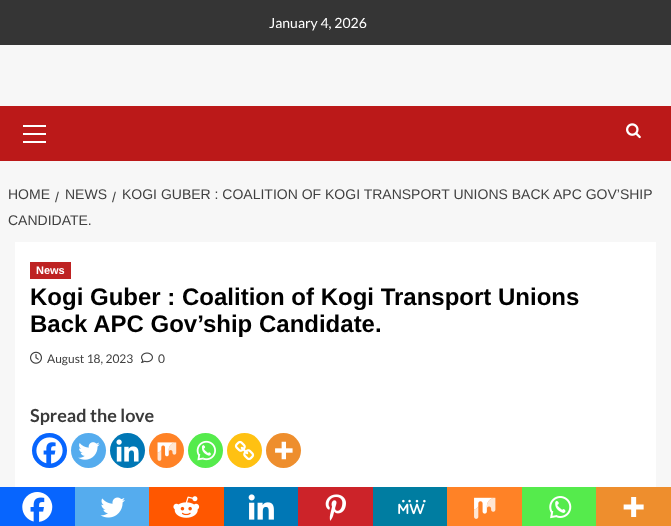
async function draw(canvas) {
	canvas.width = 671;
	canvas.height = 526;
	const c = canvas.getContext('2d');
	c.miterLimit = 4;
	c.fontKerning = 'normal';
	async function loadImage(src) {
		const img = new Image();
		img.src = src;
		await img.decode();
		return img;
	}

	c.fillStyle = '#f7f7f7';
	c.fillRect(0, 0, 671, 526);
	c.fillStyle = '#353535';
	c.fillRect(0, 0, 671, 45);
	c.font = '14px Lato';
	c.fillStyle = '#fff';
	c.fillText('January 4, 2026', 269, 28);
	for (const [x, y, w, h, color] of [
		[0, 106, 671, 55, '#bb1919'],
		[23, 133, 23, 2, '#fff'],
		[23, 125, 23, 2, '#fff'],
		[23, 141, 23, 2, '#fff'],
	]) {
		c.fillStyle = color;
		c.fillRect(x, y, w, h);
	}
	c.drawImage(await loadImage('img1.png'), 626, 123, 15, 16);
	c.font = '14px Liberation Sans';
	c.fillStyle = '#404040';
	for (const [text, x, y] of [
		['HOME', 8, 199],
		['/', 112, 202],
		['KOGI GUBER : COALITION OF KOGI TRANSPORT UNIONS BACK APC GOV’SHIP', 122, 199],
		['CANDIDATE.', 8, 225],
		['/', 55, 202],
		['NEWS', 65, 199],
	]) {
		c.fillText(text, x, y);
	}
	c.fillStyle = '#fff';
	c.fillRect(15, 242, 641, 245);
	c.fillStyle = '#be2222';
	c.fillRect(30, 262, 41, 17);
	c.font = 'bold 11px Liberation Sans';
	c.fillStyle = '#fff';
	c.fillText('News', 36, 274);
	c.font = 'bold 24px Liberation Sans';
	c.fillStyle = '#000';
	c.fillText('Kogi Guber : Coalition of Kogi Transport Unions', 30, 305);
	c.fillText('Back APC Gov’ship Candidate.', 30, 332);
	c.drawImage(await loadImage('img2.png'), 30, 351, 12, 13);
	c.font = '12px Lato';
	c.fillStyle = '#404040';
	c.fillText('August 18, 2023', 47, 363);
	c.drawImage(await loadImage('img3.png'), 141, 352, 12, 11);
	c.fillText('0', 158, 363);
	c.font = 'bold 18px Lato';
	c.fillStyle = '#3a3a3a';
	c.fillText('Spread the love', 30, 422);
	c.fillStyle = '#0765fe';
	c.beginPath();
	c.arc(49.5, 450.5, 17.5, 0, 2 * Math.PI);
	c.fill();
	c.drawImage(await loadImage('img4.png'), 36, 437, 27, 27);
	c.fillStyle = '#55acee';
	c.beginPath();
	c.arc(88.5, 450.5, 17.5, 0, 2 * Math.PI);
	c.fill();
	c.drawImage(await loadImage('img5.png'), 78, 442, 22, 18);
	c.fillStyle = '#0077b5';
	c.beginPath();
	c.arc(127.5, 450.5, 17.5, 0, 2 * Math.PI);
	c.fill();
	c.drawImage(await loadImage('img6.png'), 116, 439, 23, 23);
	c.fillStyle = '#ff8226';
	c.beginPath();
	c.arc(166.5, 450.5, 17.5, 0, 2 * Math.PI);
	c.fill();
	c.drawImage(await loadImage('img7.png'), 157, 442, 20, 19);
	c.fillStyle = '#55eb4c';
	c.beginPath();
	c.arc(205.5, 450.5, 17.5, 0, 2 * Math.PI);
	c.fill();
	c.drawImage(await loadImage('img8.png'), 196, 440, 20, 21);
	c.fillStyle = '#ffc112';
	c.beginPath();
	c.arc(244.5, 450.5, 17.5, 0, 2 * Math.PI);
	c.fill();
	c.drawImage(await loadImage('img9.png'), 234, 440, 21, 21);
	c.fillStyle = '#ee8e2d';
	c.beginPath();
	c.arc(283.5, 450.5, 17.5, 0, 2 * Math.PI);
	c.fill();
	c.drawImage(await loadImage('img10.png'), 275, 441, 18, 19);
	c.fillStyle = '#0765fe';
	c.fillRect(0, 487, 75, 39);
	c.drawImage(await loadImage('img11.png'), 22, 492, 31, 30);
	c.fillStyle = '#55acee';
	c.fillRect(75, 487, 74, 39);
	c.drawImage(await loadImage('img12.png'), 100, 497, 25, 21);
	c.fillStyle = '#ff5700';
	c.fillRect(149, 487, 75, 39);
	c.drawImage(await loadImage('img13.png'), 173, 496, 27, 22);
	c.fillStyle = '#0077b5';
	c.fillRect(224, 487, 74, 39);
	c.drawImage(await loadImage('img14.png'), 248, 494, 26, 26);
	c.fillStyle = '#cc2329';
	c.fillRect(298, 487, 75, 39);
	c.drawImage(await loadImage('img15.png'), 325, 494, 21, 27);
	c.fillStyle = '#007da1';
	c.fillRect(373, 487, 74, 39);
	c.drawImage(await loadImage('img16.png'), 398, 499, 28, 16);
	c.fillStyle = '#ff8226';
	c.fillRect(447, 487, 75, 39);
	c.drawImage(await loadImage('img17.png'), 474, 497, 22, 22);
	c.fillStyle = '#55eb4c';
	c.fillRect(522, 487, 74, 39);
	c.drawImage(await loadImage('img18.png'), 549, 496, 23, 23);
	c.fillStyle = '#ee8e2d';
	c.fillRect(596, 487, 75, 39);
	c.drawImage(await loadImage('img19.png'), 623, 497, 21, 20);
}

draw(document.querySelector('canvas'));
